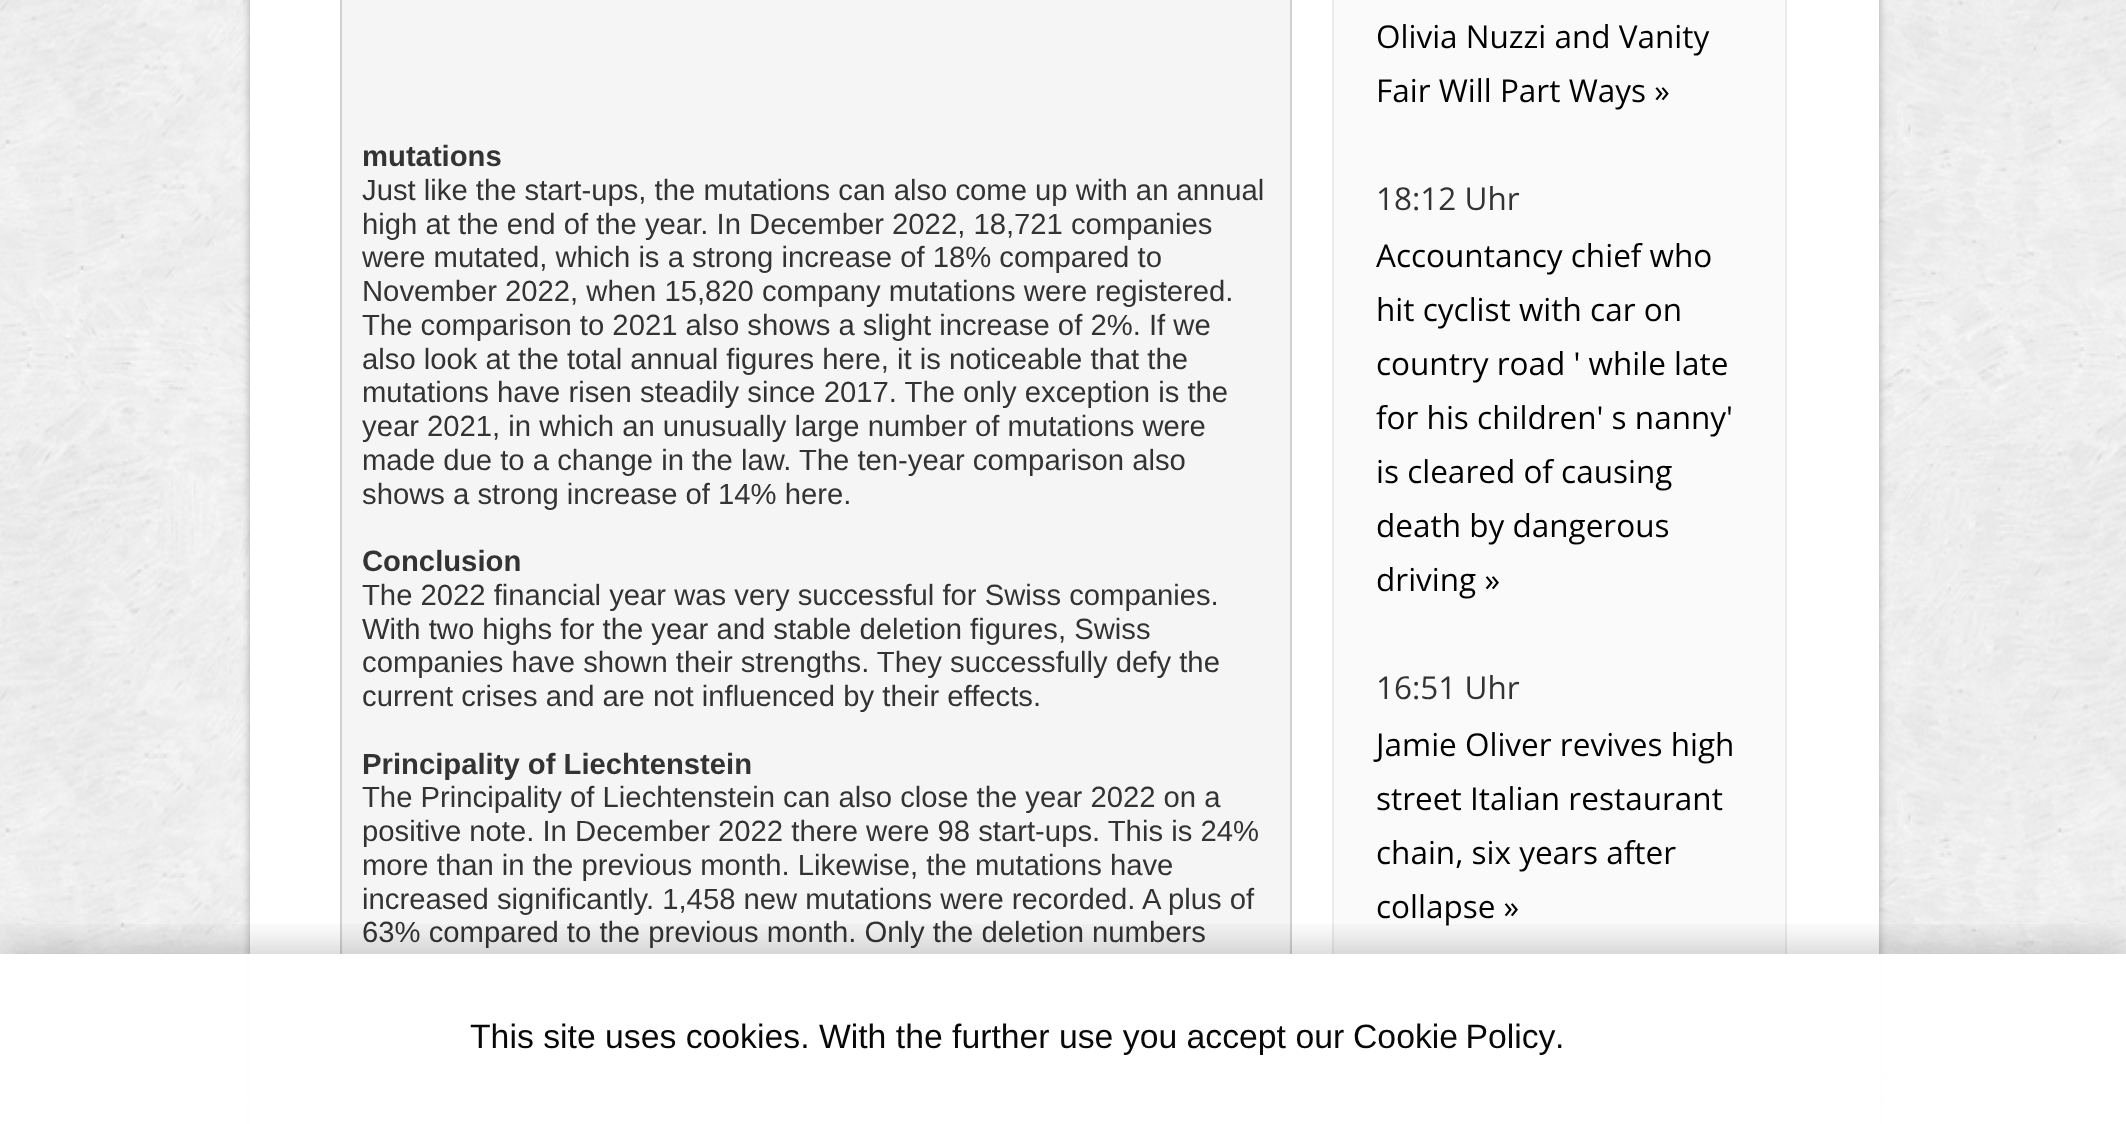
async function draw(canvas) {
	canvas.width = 2126;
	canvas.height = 1124;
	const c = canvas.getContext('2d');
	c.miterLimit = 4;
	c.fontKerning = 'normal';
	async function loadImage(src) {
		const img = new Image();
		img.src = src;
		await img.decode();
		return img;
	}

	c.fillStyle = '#fff';
	c.fillRect(0, 0, 2126, 1124);
	c.drawImage(await loadImage('img1.png'), 0, 0, 2126, 1124);
	c.fillStyle = '#0000004d';
	c.filter = 'blur(4.5px)';
	c.beginPath();
	c.rect(250, -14, 1629, 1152);
	c.fill();
	c.filter = 'none';
	c.fillStyle = '#fff';
	c.fillRect(250, 0, 1629, 1124);
	c.fillStyle = '#f5f5f5';
	c.beginPath();
	c.rect(341, -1, 950, 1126);
	c.fill();
	c.strokeStyle = '#d0d0d0';
	c.lineWidth = 2;
	c.stroke();
	c.font = 'bold 29.25px Liberation Sans';
	c.fillStyle = '#333';
	c.fillText('mutations', 362, 166);
	c.font = '29.25px Liberation Sans';
	for (const [text, x, y] of [
		['Just like the start-ups, the mutations can also come up with an annual', 362, 200],
		['high at the end of the year. In December 2022, 18,721 companies', 362, 234],
		['were mutated, which is a strong increase of 18% compared to', 362, 267],
		['November 2022, when 15,820 company mutations were registered.', 362, 301],
		['The comparison to 2021 also shows a slight increase of 2%. If we', 362, 335],
		['also look at the total annual figures here, it is noticeable that the', 362, 369],
		['mutations have risen steadily since 2017. The only exception is the', 362, 402],
		['year 2021, in which an unusually large number of mutations were', 362, 436],
		['made due to a change in the law. The ten-year comparison also', 362, 470],
		['shows a strong increase of 14% here.', 362, 504],
	]) {
		c.fillText(text, x, y);
	}
	c.font = 'bold 29.25px Liberation Sans';
	c.fillText('Conclusion', 362, 571);
	c.font = '29.25px Liberation Sans';
	for (const [text, x, y] of [
		['The 2022 financial year was very successful for Swiss companies.', 362, 605],
		['With two highs for the year and stable deletion figures, Swiss', 362, 639],
		['companies have shown their strengths. They successfully defy the', 362, 672],
		['current crises and are not influenced by their effects.', 362, 706],
	]) {
		c.fillText(text, x, y);
	}
	c.font = 'bold 29.25px Liberation Sans';
	c.fillText('Principality of Liechtenstein', 362, 774);
	c.font = '29.25px Liberation Sans';
	for (const [text, x, y] of [
		['The Principality of Liechtenstein can also close the year 2022 on a', 362, 807],
		['positive note. In December 2022 there were 98 start-ups. This is 24%', 362, 841],
		['more than in the previous month. Likewise, the mutations have', 362, 875],
		['increased significantly. 1,458 new mutations were recorded. A plus of', 362, 909],
		['63% compared to the previous month. Only the deletion numbers', 362, 942],
	]) {
		c.fillText(text, x, y);
	}
	c.fillStyle = '#fafafa';
	c.beginPath();
	c.rect(1333, -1, 453, 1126);
	c.fill();
	c.strokeStyle = '#ebebeb';
	c.stroke();
	c.font = '31.5px Open Sans';
	c.fillStyle = '#000';
	c.fillText('Olivia Nuzzi and Vanity', 1376, 48);
	c.fillText('Fair Will Part Ways »', 1376, 102);
	c.fillStyle = '#333';
	c.fillText('18:12 Uhr', 1376, 210);
	c.fillStyle = '#000';
	for (const [text, x, y] of [
		['Accountancy chief who', 1376, 267],
		['hit cyclist with car on', 1376, 321],
		['country road \' while late', 1376, 375],
		['for his children\' s nanny\'', 1376, 429],
		['is cleared of causing', 1376, 483],
		['death by dangerous', 1376, 537],
		['driving »', 1376, 591],
	]) {
		c.fillText(text, x, y);
	}
	c.fillStyle = '#333';
	c.fillText('16:51 Uhr', 1376, 699);
	c.fillStyle = '#000';
	for (const [text, x, y] of [
		['Jamie Oliver revives high', 1376, 756],
		['street Italian restaurant', 1376, 810],
		['chain, six years after', 1376, 864],
		['collapse »', 1376, 918],
	]) {
		c.fillText(text, x, y);
	}
	c.fillStyle = '#eee';
	c.fillRect(1375, 1058, 369, 2);
	c.fillStyle = '#fff';
	c.fillRect(1375, 1060, 369, 2);
	c.save();
	c.beginPath();
	c.rect(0, 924, 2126, 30);
	c.clip();
	c.fillStyle = '#0000002e';
	c.filter = 'blur(17px)';
	c.beginPath();
	c.rect(2, 945, 2122, 167);
	c.fill();
	c.filter = 'none';
	c.restore();
	c.fillStyle = '#fffffff7';
	c.fillRect(0, 954, 2126, 170);
	c.font = '33.75px Liberation Sans';
	c.fillStyle = '#080808';
	c.fillText('This site uses cookies. With the further use you accept our', 470, 1048);
	c.wordSpacing = '-2px';
	c.fillText('Cookie Policy', 1353, 1048);
	c.wordSpacing = '0px';
	c.fillText('.', 1555, 1048);
}

draw(document.querySelector('canvas'));
